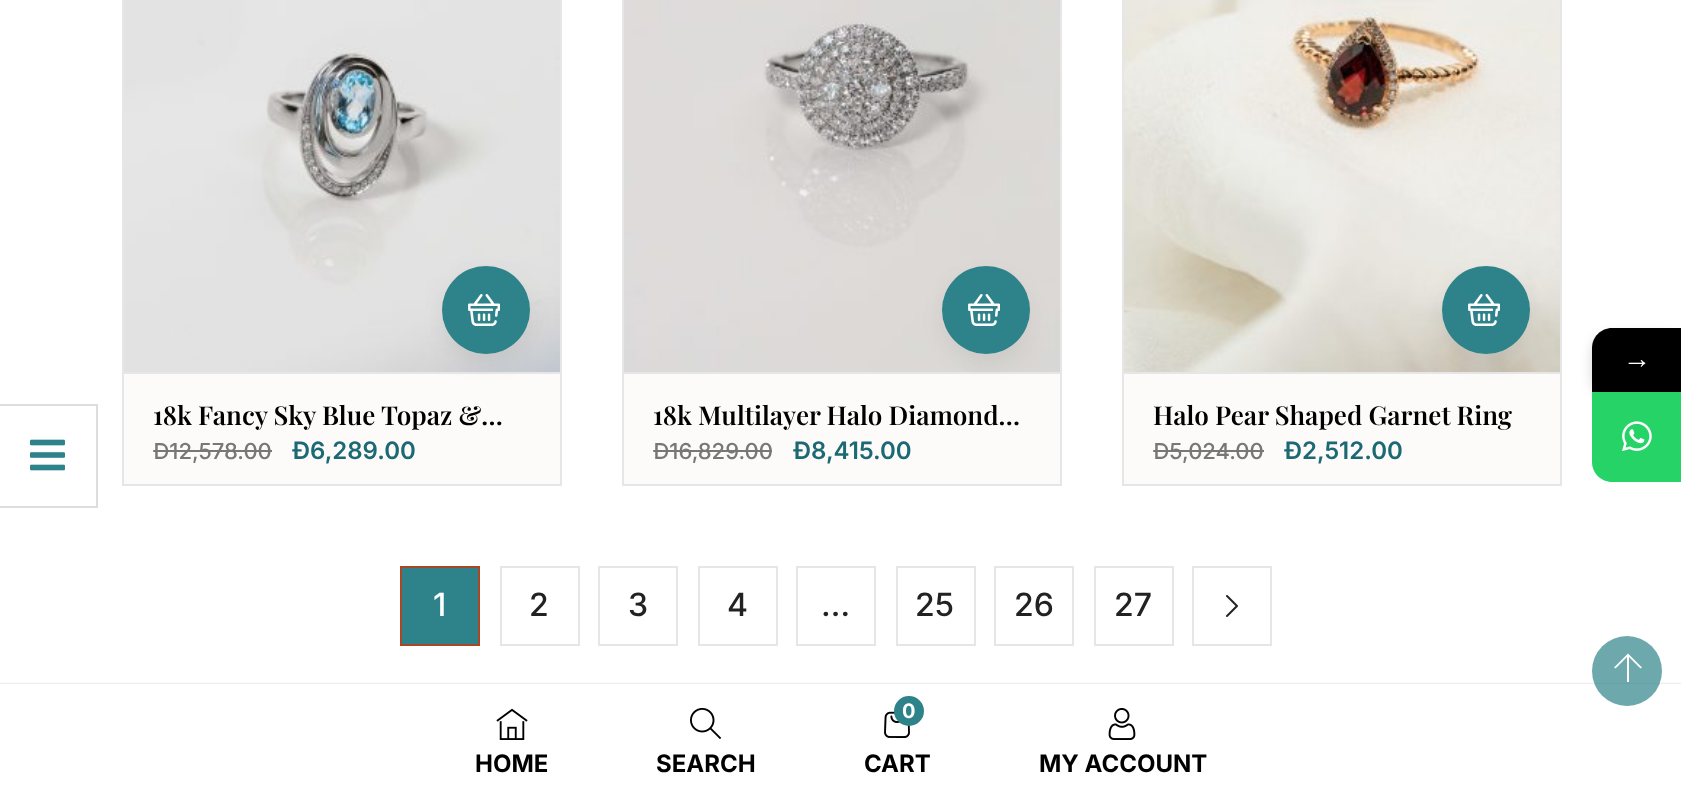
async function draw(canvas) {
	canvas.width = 1681;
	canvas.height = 805;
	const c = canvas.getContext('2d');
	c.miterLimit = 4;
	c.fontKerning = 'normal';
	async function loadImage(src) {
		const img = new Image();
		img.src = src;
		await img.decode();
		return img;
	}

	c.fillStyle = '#fff';
	c.fillRect(0, 0, 1681, 805);
	c.fillStyle = '#00000029';
	c.filter = 'blur(6px)';
	c.beginPath();
	c.roundRect(1592, 334, 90, 64, 20);
	c.fill();
	c.filter = 'none';
	c.fillStyle = '#000';
	c.beginPath();
	c.moveTo(1612, 328);
	c.lineTo(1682, 328);
	c.lineTo(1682, 392);
	c.lineTo(1592, 392);
	c.lineTo(1592, 348);
	c.bezierCurveTo(1592, 337, 1601, 328, 1612, 328);
	c.closePath();
	c.fill();
	c.font = '28px Liberation Serif';
	c.fillStyle = '#fff';
	c.fillText('→', 1623, 368);
	c.fillStyle = '#26d367';
	c.beginPath();
	c.moveTo(1592, 392);
	c.lineTo(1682, 392);
	c.lineTo(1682, 482);
	c.lineTo(1612, 482);
	c.bezierCurveTo(1601, 482, 1592, 473, 1592, 462);
	c.closePath();
	c.fill();
	c.drawImage(await loadImage('img1.png'), 1622, 421, 30, 31);
	c.strokeStyle = '#ddd';
	c.lineWidth = 2;
	c.strokeRect(-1, 405, 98, 102);
	c.drawImage(await loadImage('img2.png'), 30, 439, 35, 32);
	c.strokeStyle = '#e6e6e6';
	c.strokeRect(123, -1, 438, 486);
	c.drawImage(await loadImage('img3.png'), 124, 0, 436, 372);
	c.fillStyle = '#fdfbf9';
	c.fillRect(124, 374, 436, 110);
	c.fillStyle = '#e6e6e6';
	c.fillRect(124, 372, 436, 2);
	c.fillStyle = '#5b5b5b1a';
	c.filter = 'blur(10px)';
	c.beginPath();
	c.roundRect(442, 276, 88, 88, 44);
	c.fill();
	c.filter = 'none';
	c.fillStyle = '#2d8389';
	c.beginPath();
	c.arc(486, 310, 44, 0, 2 * Math.PI);
	c.fill();
	c.drawImage(await loadImage('img4.png'), 468, 294, 32, 32);
	c.font = '600 26px Playfair Display';
	c.fillStyle = '#000';
	c.fillText('18k Fancy Sky Blue Topaz &…', 153, 425);
	c.font = '500 22px Inter';
	c.fillStyle = '#777';
	c.fillText('Đ12,578.00', 153, 459);
	c.fillRect(154, 450, 118, 2);
	c.font = '600 24px Inter';
	c.fillStyle = '#1b6973';
	c.fillText('Đ6,289.00', 292, 459);
	c.strokeRect(623, -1, 438, 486);
	c.drawImage(await loadImage('img5.png'), 624, 0, 436, 372);
	c.fillStyle = '#fdfbf9';
	c.fillRect(624, 374, 436, 110);
	c.fillStyle = '#e6e6e6';
	c.fillRect(624, 372, 436, 2);
	c.fillStyle = '#5b5b5b1a';
	c.filter = 'blur(10px)';
	c.beginPath();
	c.roundRect(942, 276, 88, 88, 44);
	c.fill();
	c.filter = 'none';
	c.fillStyle = '#2d8389';
	c.beginPath();
	c.arc(986, 310, 44, 0, 2 * Math.PI);
	c.fill();
	c.drawImage(await loadImage('img4.png'), 968, 294, 32, 32);
	c.font = '600 26px Playfair Display';
	c.fillStyle = '#000';
	c.fillText('18k Multilayer Halo Diamond…', 653, 425);
	c.font = '500 22px Inter';
	c.fillStyle = '#777';
	c.fillText('Đ16,829.00', 653, 459);
	c.fillRect(654, 450, 118, 2);
	c.font = '600 24px Inter';
	c.fillStyle = '#1b6973';
	c.fillText('Đ8,415.00', 793, 459);
	c.strokeRect(1123, -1, 438, 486);
	c.drawImage(await loadImage('img6.png'), 1124, 0, 436, 372);
	c.fillStyle = '#fdfbf9';
	c.fillRect(1124, 374, 436, 110);
	c.fillStyle = '#e6e6e6';
	c.fillRect(1124, 372, 436, 2);
	c.fillStyle = '#5b5b5b1a';
	c.filter = 'blur(10px)';
	c.beginPath();
	c.roundRect(1442, 276, 88, 88, 44);
	c.fill();
	c.filter = 'none';
	c.fillStyle = '#2d8389';
	c.beginPath();
	c.arc(1486, 310, 44, 0, 2 * Math.PI);
	c.fill();
	c.drawImage(await loadImage('img4.png'), 1468, 294, 32, 32);
	c.font = '600 26px Playfair Display';
	c.fillStyle = '#000';
	c.fillText('Halo Pear Shaped Garnet Ring', 1153, 425);
	c.font = '500 22px Inter';
	c.fillStyle = '#777';
	c.fillText('Đ5,024.00', 1153, 459);
	c.fillRect(1154, 450, 110, 2);
	c.font = '600 24px Inter';
	c.fillStyle = '#1b6973';
	c.fillText('Đ2,512.00', 1284, 459);
	c.fillStyle = '#2d8389';
	c.beginPath();
	c.rect(401, 567, 78, 78);
	c.fill();
	c.strokeStyle = '#a64826';
	c.stroke();
	c.font = '500 32px Inter';
	c.fillStyle = '#fff';
	c.fillText('1', 433, 616);
	c.strokeStyle = '#e6e6e6';
	c.strokeRect(501, 567, 78, 78);
	c.fillStyle = '#222';
	c.fillText('2', 529, 616);
	c.strokeRect(599, 567, 78, 78);
	c.fillText('3', 628, 616);
	c.strokeRect(699, 567, 78, 78);
	c.fillText('4', 727, 616);
	c.strokeRect(797, 567, 78, 78);
	c.fillText('…', 821, 616);
	c.strokeRect(897, 567, 78, 78);
	c.fillText('25', 915, 616);
	c.strokeRect(995, 567, 78, 78);
	c.fillText('26', 1014, 616);
	c.strokeRect(1095, 567, 78, 78);
	c.fillText('27', 1114, 616);
	c.strokeRect(1193, 567, 78, 78);
	c.drawImage(await loadImage('img7.png'), 1226, 595, 12, 22);
	c.fillStyle = '#00000033';
	c.filter = 'blur(1px)';
	c.beginPath();
	c.rect(0, 684, 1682, 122);
	c.fill();
	c.filter = 'none';
	c.fillStyle = '#fff';
	c.fillRect(0, 684, 1681, 121);
	c.fillStyle = '#2d8389b3';
	c.beginPath();
	c.arc(1627, 671, 35, 0, 2 * Math.PI);
	c.fill();
	c.fillStyle = '#fff';
	c.beginPath();
	c.moveTo(1640.5, 668.5);
	c.lineTo(1629, 657);
	c.lineTo(1629, 682);
	c.lineTo(1627, 682);
	c.lineTo(1627, 657);
	c.lineTo(1615.5, 668.5);
	c.lineTo(1614, 667.5);
	c.lineTo(1628, 653.5);
	c.lineTo(1642, 667.5);
	c.closePath();
	c.fill();
	c.drawImage(await loadImage('img8.png'), 496, 708, 32, 32);
	c.font = 'bold 24px Inter';
	c.fillStyle = '#000';
	c.fillText('HOME', 475, 772);
	c.drawImage(await loadImage('img9.png'), 690, 707, 32, 33);
	c.fillText('SEARCH', 656, 772);
	c.drawImage(await loadImage('img10.png'), 884, 711, 26, 27);
	c.fillStyle = '#2d8389';
	c.beginPath();
	c.arc(909, 711, 15, 0, 2 * Math.PI);
	c.fill();
	c.font = 'bold 20px Inter';
	c.fillStyle = '#fff';
	c.fillText('0', 902, 718);
	c.font = 'bold 24px Inter';
	c.fillStyle = '#000';
	c.fillText('CART', 864, 772);
	c.drawImage(await loadImage('img11.png'), 1108, 708, 28, 32);
	c.fillText('MY ACCOUNT', 1039, 772);
}

draw(document.querySelector('canvas'));
